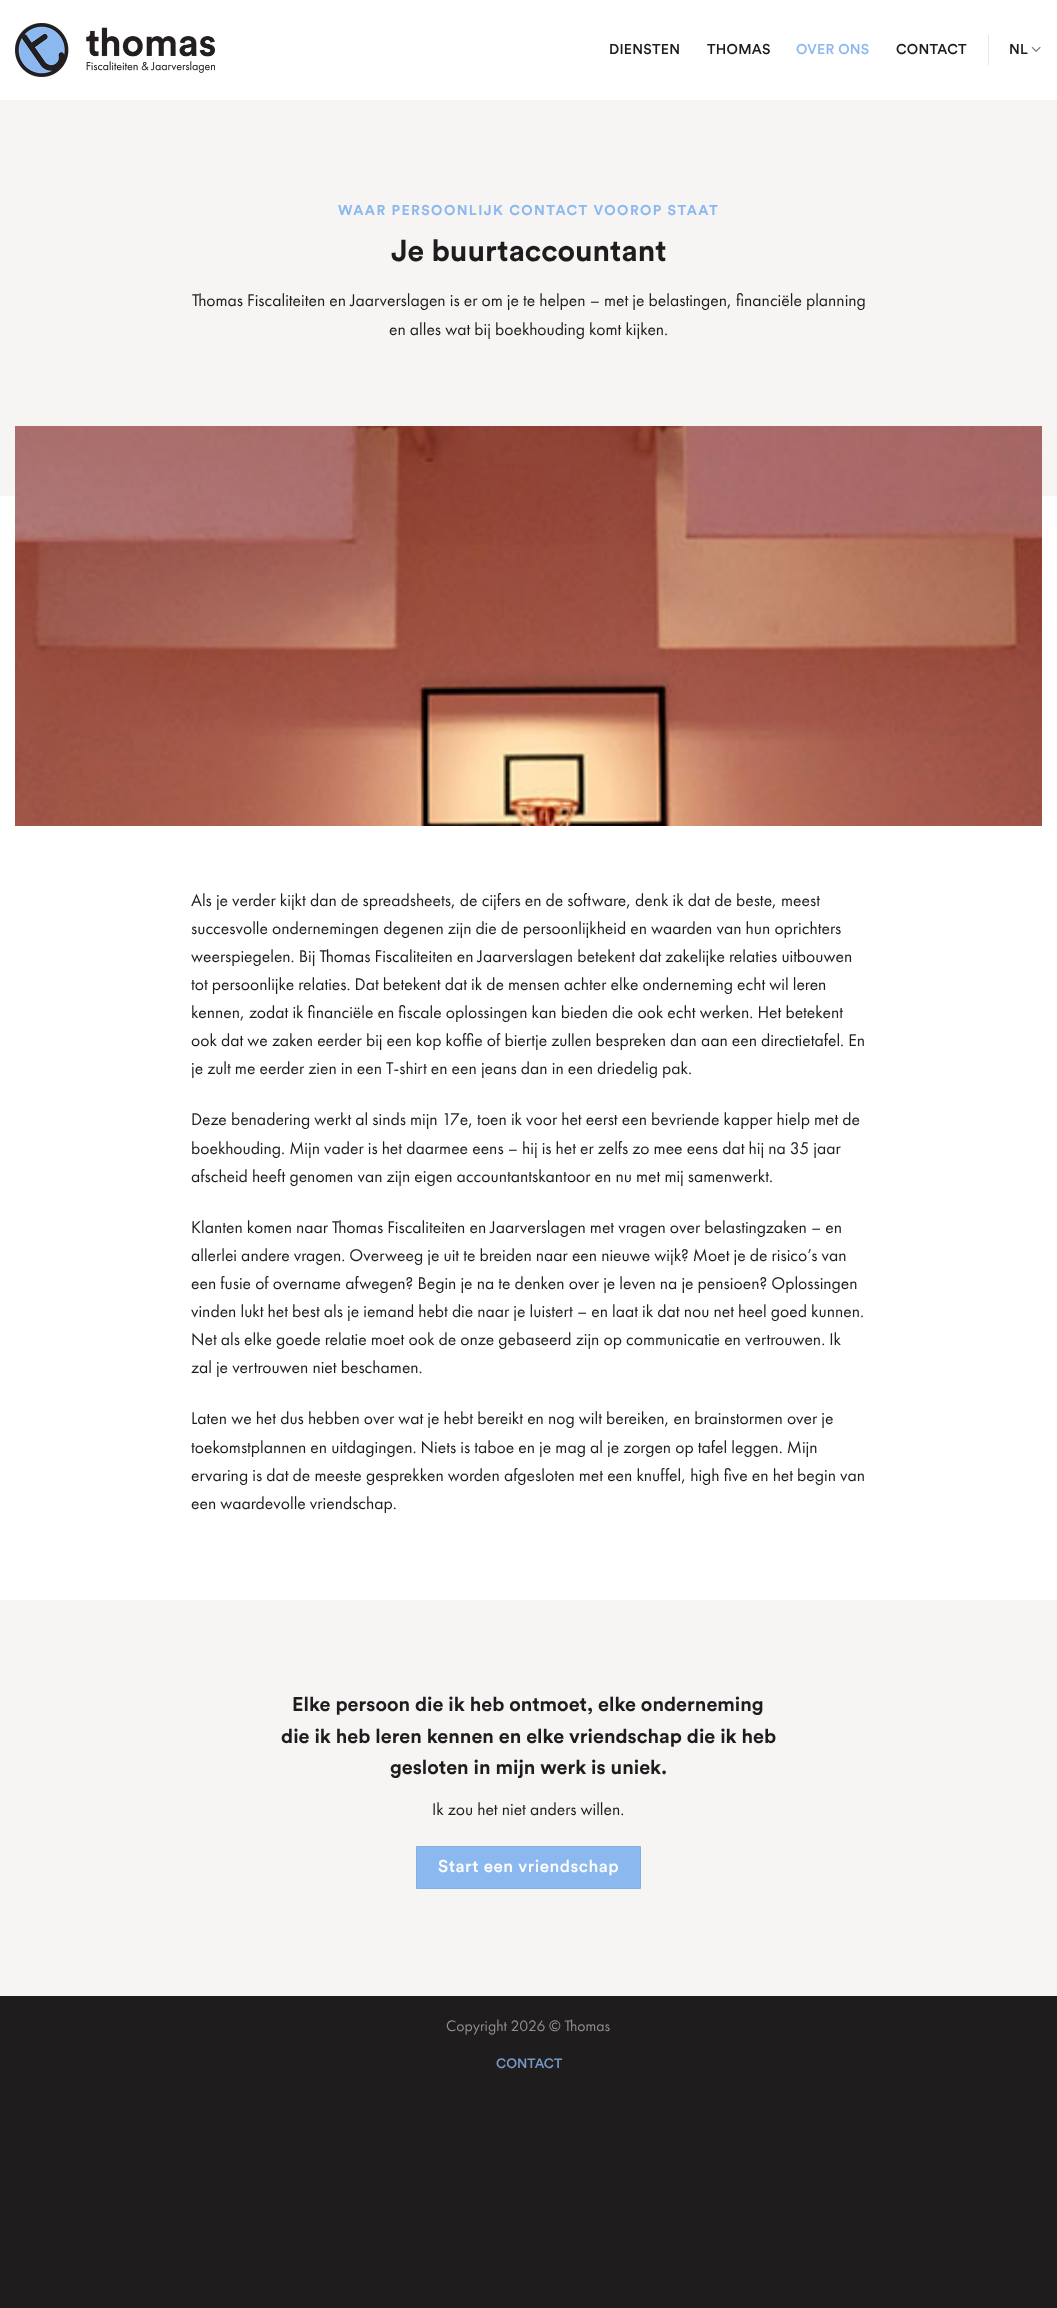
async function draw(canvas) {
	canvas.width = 1057;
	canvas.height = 2308;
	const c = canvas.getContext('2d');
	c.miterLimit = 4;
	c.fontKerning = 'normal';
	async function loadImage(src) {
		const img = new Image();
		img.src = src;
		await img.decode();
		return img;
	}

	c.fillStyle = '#1e1c1d';
	c.fillRect(0, 0, 1057, 2308);
	c.fillStyle = '#fff';
	c.fillRect(0, 0, 1057, 1600);
	c.drawImage(await loadImage('img1.png'), 15, 23, 200, 54);
	c.letterSpacing = '0.25px';
	c.font = '500 14.1px Circular';
	c.fillStyle = '#1e1c1d';
	c.fillText('DIENSTEN', 609, 54);
	c.fillText('THOMAS', 707, 54);
	c.fillStyle = '#8bb8ef';
	c.fillText('OVER ONS', 796, 54);
	c.fillStyle = '#1e1c1d';
	c.fillText('CONTACT', 896, 54);
	c.fillStyle = '#e6e6e6';
	c.fillRect(988, 35, 1, 30);
	c.fillStyle = '#1e1c1d';
	c.fillText('NL', 1009, 54);
	c.drawImage(await loadImage('img2.png'), 1031, 46, 10, 6);
	c.fillStyle = '#f7f5f4';
	c.fillRect(0, 100, 1057, 396);
	c.letterSpacing = '1.4px';
	c.font = 'bold 14.1px Circular';
	c.fillStyle = '#8bb8ef';
	c.fillText('WAAR PERSOONLIJK CONTACT VOOROP STAAT', 338, 215);
	c.letterSpacing = '0px';
	c.font = 'bold 30px Circular';
	c.fillStyle = '#1e1c1d';
	c.fillText('Je buurtaccountant', 391, 261);
	c.font = '17.6px Futura PT';
	c.fillText('Thomas Fiscaliteiten en Jaarverslagen is er om je te helpen – met je belastingen, financiële planning', 192, 306);
	c.fillText('en alles wat bij boekhouding komt kijken.', 389, 335);
	c.drawImage(await loadImage('img3.png'), 15, 426, 1027, 400);
	for (const [text, x, y] of [
		['Als je verder kijkt dan de spreadsheets, de cijfers en de software, denk ik dat de beste, meest', 191, 906],
		['succesvolle ondernemingen degenen zijn die de persoonlijkheid en waarden van hun oprichters', 191, 934],
		['weerspiegelen. Bij Thomas Fiscaliteiten en Jaarverslagen betekent dat zakelijke relaties uitbouwen', 191, 962],
		['tot persoonlijke relaties. Dat betekent dat ik de mensen achter elke onderneming echt wil leren', 191, 990],
		['kennen, zodat ik financiële en fiscale oplossingen kan bieden die ook echt werken. Het betekent', 191, 1018],
		['ook dat we zaken eerder bij een kop koffie of biertje zullen bespreken dan aan een directietafel. En', 191, 1046],
		['je zult me eerder zien in een T-shirt en een jeans dan in een driedelig pak.', 191, 1074],
		['Deze benadering werkt al sinds mijn 17e, toen ik voor het eerst een bevriende kapper hielp met de', 191, 1125],
		['boekhouding. Mijn vader is het daarmee eens – hij is het er zelfs zo mee eens dat hij na 35 jaar', 191, 1154],
		['afscheid heeft genomen van zijn eigen accountantskantoor en nu met mij samenwerkt.', 191, 1182],
		['Klanten komen naar Thomas Fiscaliteiten en Jaarverslagen met vragen over belastingzaken – en', 191, 1233],
		['allerlei andere vragen. Overweeg je uit te breiden naar een nieuwe wijk? Moet je de risico’s van', 191, 1261],
		['een fusie of overname afwegen? Begin je na te denken over je leven na je pensioen? Oplossingen', 191, 1289],
		['vinden lukt het best als je iemand hebt die naar je luistert – en laat ik dat nou net heel goed kunnen.', 191, 1317],
		['Net als elke goede relatie moet ook de onze gebaseerd zijn op communicatie en vertrouwen. Ik', 191, 1345],
		['zal je vertrouwen niet beschamen.', 191, 1373],
		['Laten we het dus hebben over wat je hebt bereikt en nog wilt bereiken, en brainstormen over je', 191, 1424],
		['toekomstplannen en uitdagingen. Niets is taboe en je mag al je zorgen op tafel leggen. Mijn', 191, 1453],
		['ervaring is dat de meeste gesprekken worden afgesloten met een knuffel, high five en het begin van', 191, 1481],
		['een waardevolle vriendschap.', 191, 1509],
	]) {
		c.fillText(text, x, y);
	}
	c.fillStyle = '#f7f5f4';
	c.fillRect(0, 1600, 1057, 396);
	c.font = 'bold 19.8px Circular';
	c.fillStyle = '#1e1c1d';
	for (const [text, x, y] of [
		['Elke persoon die ik heb ontmoet, elke onderneming', 292, 1711],
		['die ik heb leren kennen en elke vriendschap die ik heb', 281, 1743],
		['gesloten in mijn werk is uniek.', 390, 1774],
	]) {
		c.fillText(text, x, y);
	}
	c.font = '17.6px Futura PT';
	c.fillText('Ik zou het niet anders willen.', 432, 1815);
	c.fillStyle = '#8bb8ef';
	c.beginPath();
	c.rect(416.5, 1846.5, 224, 42);
	c.fill();
	c.strokeStyle = '#84afe3';
	c.stroke();
	c.letterSpacing = '0.5px';
	c.font = '500 17px Circular';
	c.fillStyle = '#fff';
	c.fillText('Start een vriendschap', 438, 1872);
	c.letterSpacing = '0px';
	c.font = '15.75px Futura PT';
	c.fillStyle = '#8f8e8e';
	c.fillText('Copyright 2026 © Thomas', 446, 2031);
	c.font = '500 13.5px Circular';
	c.fillStyle = '#7599c5';
	c.fillText('CONTACT', 496, 2068);
}

draw(document.querySelector('canvas'));
